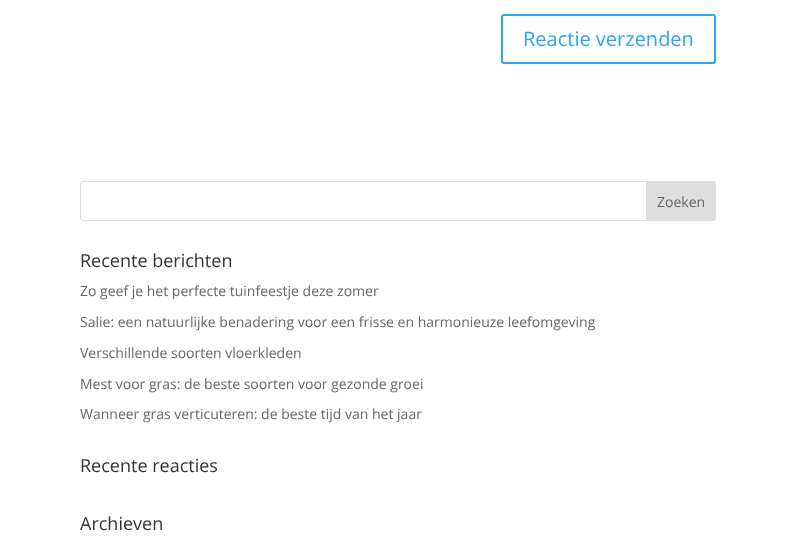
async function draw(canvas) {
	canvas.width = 795;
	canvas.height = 539;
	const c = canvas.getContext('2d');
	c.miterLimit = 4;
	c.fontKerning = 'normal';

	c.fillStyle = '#fff';
	c.fillRect(0, 0, 795, 539);
	c.beginPath();
	c.roundRect(502, 15, 213, 48, 2);
	c.strokeStyle = '#2ea3f2';
	c.lineWidth = 2;
	c.stroke();
	c.font = '20px Open Sans';
	c.fillStyle = '#2ea3f2';
	c.fillText('Reactie verzenden', 523, 46);
	c.beginPath();
	c.roundRect(80.5, 181.5, 635, 39, 2.5);
	c.strokeStyle = '#ddd';
	c.lineWidth = 1;
	c.stroke();
	c.fillStyle = '#ddd';
	c.beginPath();
	c.roundRect(646.5, 181.5, 69, 39, [0, 2.5, 2.5, 0]);
	c.fill();
	c.stroke();
	c.font = '14px Open Sans';
	c.fillStyle = '#666';
	c.fillText('Zoeken', 657, 207);
	c.font = '18px Open Sans';
	c.fillStyle = '#333';
	c.fillText('Recente berichten', 80, 267);
	c.font = '14px Open Sans';
	c.fillStyle = '#666';
	for (const [text, x, y] of [
		['Zo geef je het perfecte tuinfeestje deze zomer', 80, 296],
		['Salie: een natuurlijke benadering voor een frisse en harmonieuze leefomgeving', 80, 327],
		['Verschillende soorten vloerkleden', 80, 358],
		['Mest voor gras: de beste soorten voor gezonde groei', 80, 389],
		['Wanneer gras verticuteren: de beste tijd van het jaar', 80, 419],
	]) {
		c.fillText(text, x, y);
	}
	c.font = '18px Open Sans';
	c.fillStyle = '#333';
	c.fillText('Recente reacties', 80, 472);
	c.fillText('Archieven', 80, 530);
}

draw(document.querySelector('canvas'));
